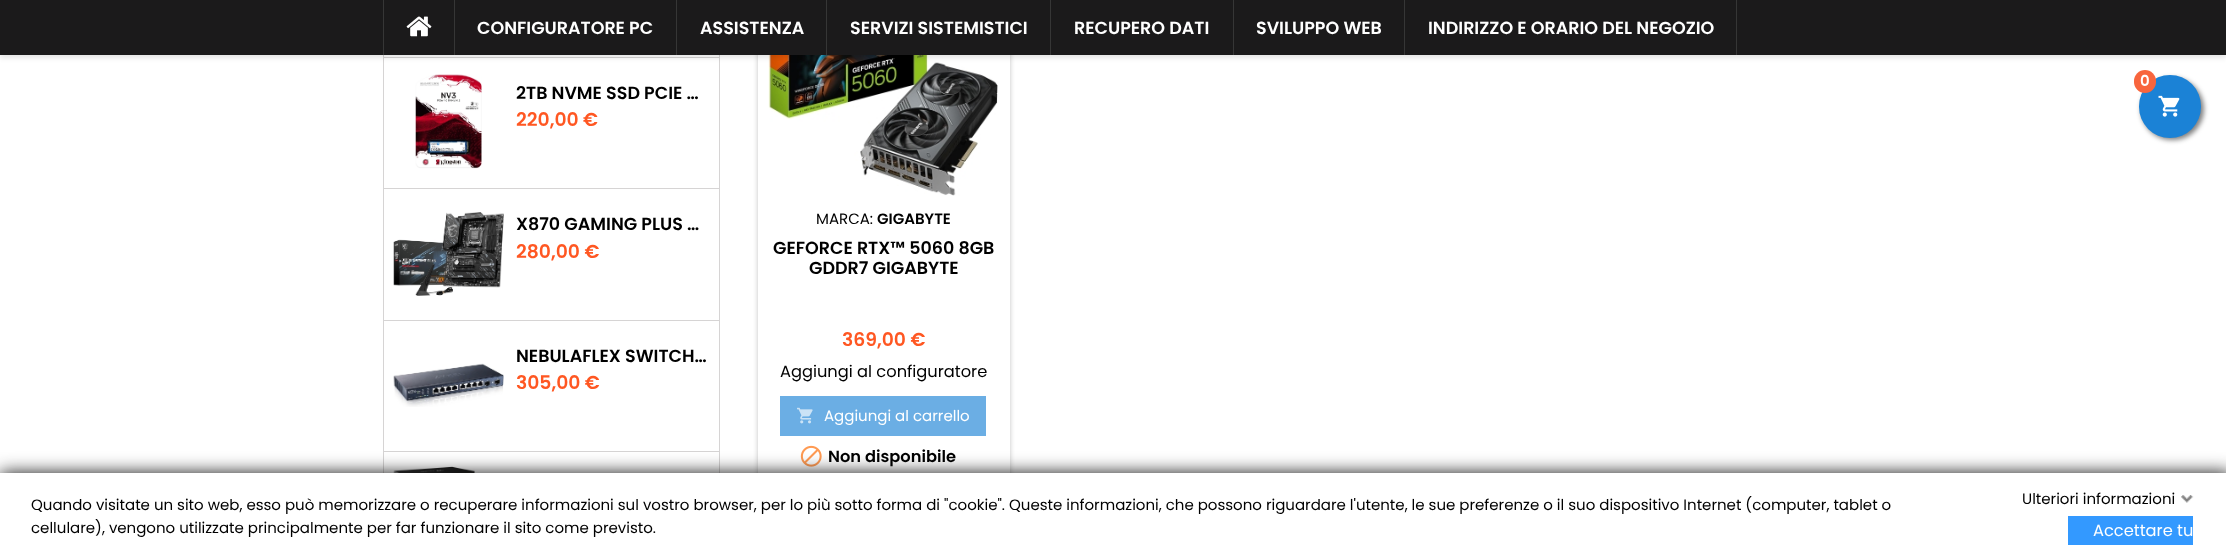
async function draw(canvas) {
	canvas.width = 2226;
	canvas.height = 560;
	const c = canvas.getContext('2d');
	c.miterLimit = 4;
	c.fontKerning = 'normal';
	async function loadImage(src) {
		const img = new Image();
		img.src = src;
		await img.decode();
		return img;
	}

	c.fillStyle = '#fff';
	c.fillRect(0, 0, 2226, 560);
	c.strokeStyle = '#d6d4d4';
	c.strokeRect(383.5, -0.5, 336, 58);
	for (const [x, y, w, h, color] of [
		[719, 58, 1, 415, '#d6d4d4'],
		[383, 188, 337, 1, '#d6d4d4'],
		[383, 58, 1, 131, '#d6d4d4'],
	]) {
		c.fillStyle = color;
		c.fillRect(x, y, w, h);
	}
	c.save();
	c.beginPath();
	c.moveTo(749, 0);
	c.lineTo(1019, 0);
	c.lineTo(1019, 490);
	c.lineTo(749, 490);
	c.closePath();
	c.moveTo(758, -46);
	c.lineTo(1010, -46);
	c.lineTo(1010, 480);
	c.lineTo(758, 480);
	c.closePath();
	c.clip('evenodd');
	c.fillStyle = '#0000003d';
	c.filter = 'blur(2.5px)';
	c.beginPath();
	c.rect(758, -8, 252, 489);
	c.fill();
	c.filter = 'none';
	c.restore();
	c.drawImage(await loadImage('img7.png'), 768, 55, 230, 141);
	c.fillStyle = '#0000001a';
	c.filter = 'blur(2.5px)';
	c.beginPath();
	c.rect(0, 3, 2226, 55);
	c.fill();
	c.filter = 'none';
	c.fillStyle = '#1b1a1b';
	c.fillRect(0, 0, 2226, 55);
	c.fillStyle = '#363636';
	c.fillRect(383, 0, 1, 55);
	c.drawImage(await loadImage('img1.png'), 406, 16, 26, 21);
	c.fillRect(454, 0, 1, 55);
	c.font = '600 17.5px Poppins';
	c.fillStyle = '#fff';
	c.fillText('CONFIGURATORE PC', 477, 34);
	c.fillStyle = '#363636';
	c.fillRect(676, 0, 1, 55);
	c.fillStyle = '#fff';
	c.fillText('ASSISTENZA', 700, 34);
	c.fillStyle = '#363636';
	c.fillRect(826, 0, 1, 55);
	c.fillStyle = '#fff';
	c.fillText('SERVIZI SISTEMISTICI', 850, 34);
	c.fillStyle = '#363636';
	c.fillRect(1050, 0, 1, 55);
	c.fillStyle = '#fff';
	c.fillText('RECUPERO DATI', 1074, 34);
	c.fillStyle = '#363636';
	c.fillRect(1233, 0, 1, 55);
	c.fillStyle = '#fff';
	c.fillText('SVILUPPO WEB', 1256, 34);
	c.fillStyle = '#363636';
	c.fillRect(1736, 0, 1, 55);
	c.fillRect(1404, 0, 1, 55);
	c.fillStyle = '#fff';
	c.fillText('INDIRIZZO E ORARIO DEL NEGOZIO', 1428, 34);
	c.fillStyle = '#00000080';
	c.filter = 'blur(2.5px)';
	c.beginPath();
	c.roundRect(2141, 78, 63, 62, 31);
	c.fill();
	c.filter = 'none';
	c.fillStyle = '#1b82d6';
	c.beginPath();
	c.roundRect(2139, 75, 62, 63, 31);
	c.fill();
	c.fillStyle = '#f8653d';
	c.beginPath();
	c.roundRect(2134, 70, 22, 23, 11);
	c.fill();
	c.font = '600 15px Poppins';
	c.fillStyle = '#fff';
	c.fillText('0', 2140, 86);
	c.drawImage(await loadImage('img2.png'), 2158, 95, 22, 22);
	c.drawImage(await loadImage('img3.png'), 415, 74, 67, 95);
	c.font = '600 17.5px Poppins';
	c.fillStyle = '#000';
	c.fillText('2TB NVME SSD PCIE …', 516, 99);
	c.font = '600 18.75px Poppins';
	c.fillStyle = '#ff5722';
	c.fillText('220,00 €', 516, 126);
	c.fillStyle = '#d6d4d4';
	c.fillRect(383, 320, 337, 1);
	c.fillRect(383, 189, 1, 132);
	c.drawImage(await loadImage('img4.png'), 393, 212, 111, 84);
	c.font = '600 17.5px Poppins';
	c.fillStyle = '#000';
	c.fillText('X870 GAMING PLUS …', 516, 230);
	c.font = '600 18.75px Poppins';
	c.fillStyle = '#ff5722';
	c.fillText('280,00 €', 516, 258);
	c.fillStyle = '#d6d4d4';
	c.fillRect(383, 451, 337, 1);
	c.fillRect(383, 321, 1, 152);
	c.drawImage(await loadImage('img5.png'), 393, 363, 111, 44);
	c.font = '600 17.5px Poppins';
	c.fillStyle = '#000';
	c.fillText('NEBULAFLEX SWITCH…', 516, 362);
	c.font = '600 18.75px Poppins';
	c.fillStyle = '#ff5722';
	c.fillText('305,00 €', 516, 389);
	c.drawImage(await loadImage('img6.png'), 393, 466, 111, 7);
	c.font = '15px Poppins';
	c.fillStyle = '#000';
	c.fillText('MARCA:', 816, 224);
	c.font = '600 15px Poppins';
	c.fillText('GIGABYTE', 877, 224);
	c.font = '600 17.5px Poppins';
	c.fillText('GEFORCE RTX™ 5060 8GB', 773, 254);
	c.fillText('GDDR7 GIGABYTE', 809, 274);
	c.font = '600 18.75px Poppins';
	c.fillStyle = '#ff5722';
	c.fillText('369,00 €', 842, 346);
	c.font = '16.25px Poppins';
	c.fillStyle = '#000';
	c.fillText('Aggiungi al configuratore', 780, 377);
	c.fillStyle = '#6baee4';
	c.fillRect(780, 396, 206, 40);
	c.drawImage(await loadImage('img8.png'), 797, 407, 16, 17);
	c.font = '15px Poppins';
	c.fillStyle = '#fff';
	c.fillText('Aggiungi al carrello', 824, 421);
	c.drawImage(await loadImage('img9.png'), 800, 445, 22, 22);
	c.font = '600 16.25px Poppins';
	c.fillStyle = '#000';
	c.fillText('Non disponibile', 828, 462);
	c.fillStyle = '#121212';
	c.filter = 'blur(9px)';
	c.beginPath();
	c.rect(0, 473, 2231, 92);
	c.fill();
	c.filter = 'none';
	c.fillStyle = '#fff';
	c.fillRect(0, 473, 2226, 87);
	c.font = '15px Poppins';
	c.fillStyle = '#000';
	for (const [text, x, y] of [
		['Quando visitate un sito web, esso può memorizzare o recuperare informazioni sul vostro browser, per lo più sotto forma di "cookie". Queste informazioni, che possono riguardare l\'utente, le sue preferenze o il suo dispositivo Internet (computer, tablet o', 31, 510],
		['cellulare), vengono utilizzate principalmente per far funzionare il sito come previsto.', 31, 533],
		['Ulteriori informazioni', 2022, 504],
	]) {
		c.fillText(text, x, y);
	}
	c.drawImage(await loadImage('img10.png'), 2181, 495, 13, 8);
	c.fillStyle = '#39f';
	c.fillRect(2068, 516, 125, 29);
	c.font = '16.25px Poppins';
	c.fillStyle = '#fff';
	c.fillText('Accettare tu', 2093, 536);
}

draw(document.querySelector('canvas'));
